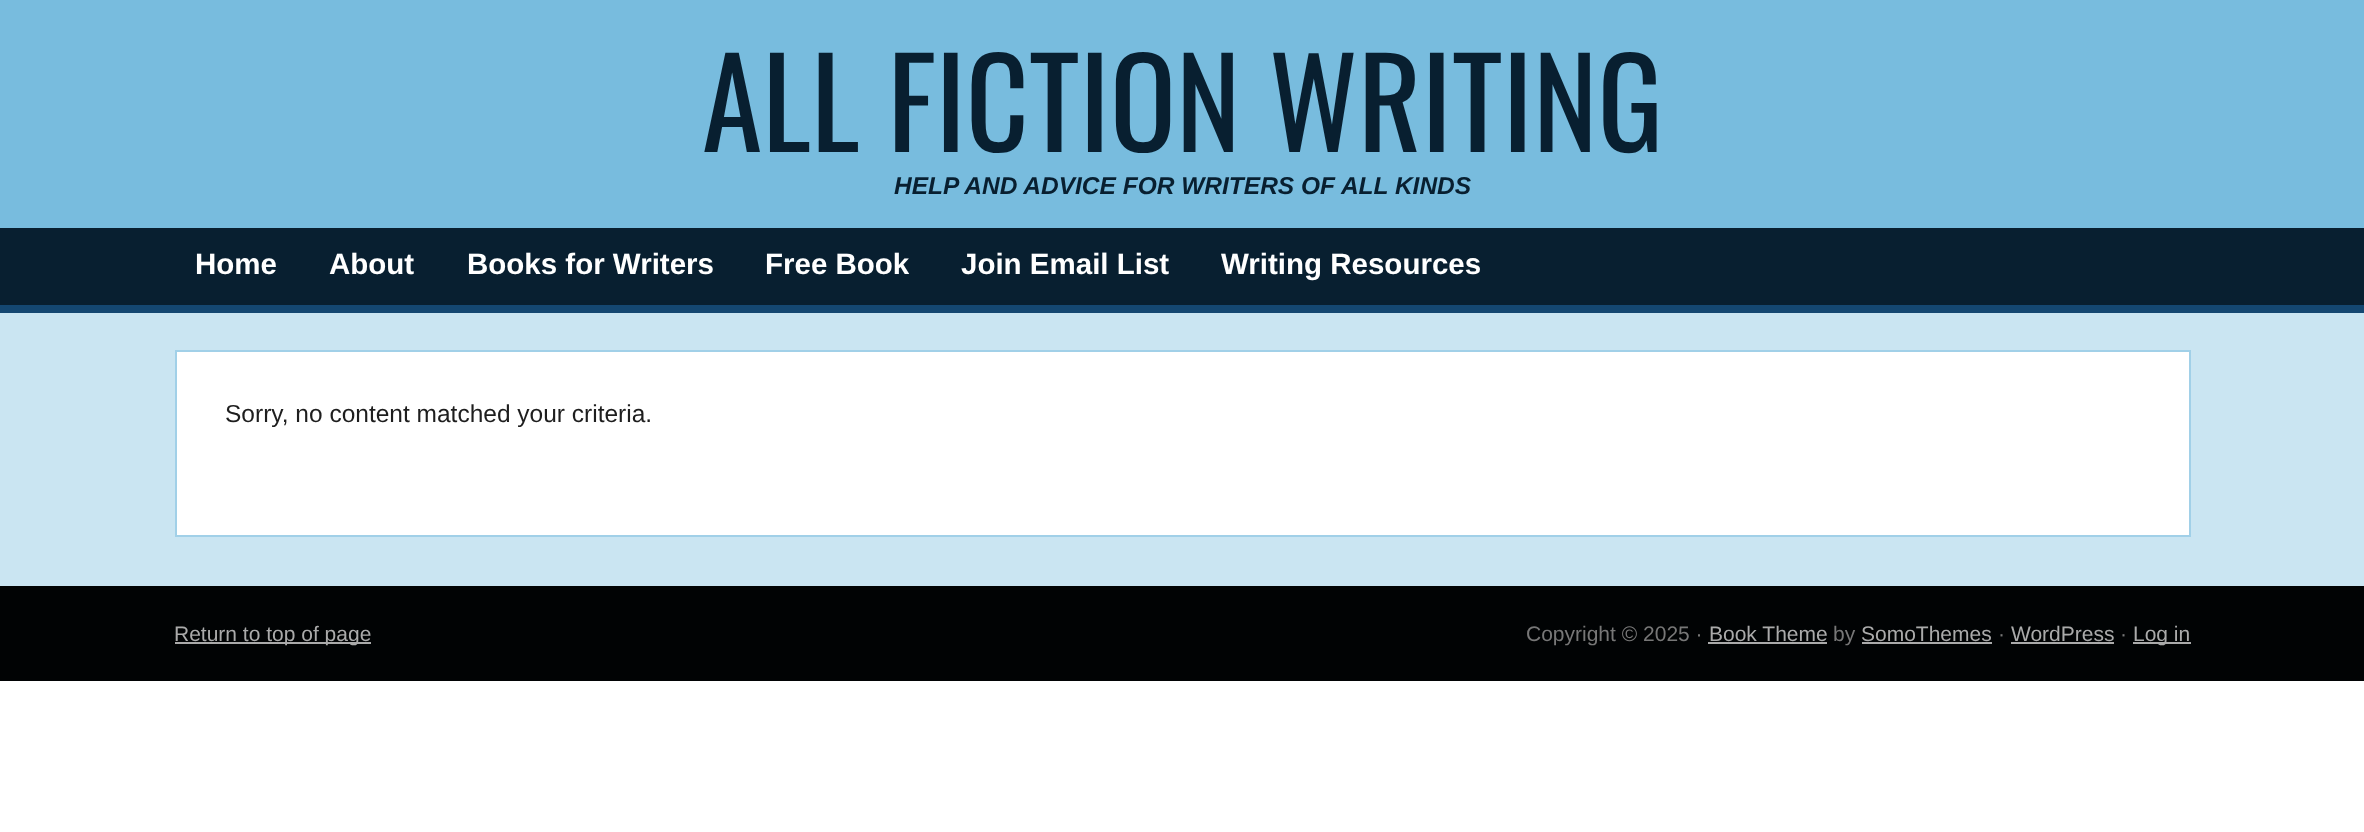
async function draw(canvas) {
	canvas.width = 2364;
	canvas.height = 832;
	const c = canvas.getContext('2d');
	c.miterLimit = 4;
	c.fontKerning = 'normal';

	c.fillStyle = '#fff';
	c.fillRect(0, 0, 2364, 832);
	c.fillStyle = '#cae5f2';
	c.fillRect(0, 313, 2364, 273);
	c.fillStyle = '#78bcde';
	c.fillRect(0, 0, 2364, 228);
	c.font = '122.5px Oswald';
	c.fillStyle = '#081f30';
	c.fillText('ALL FICTION WRITING', 702, 152);
	c.font = 'italic bold 24.5px Liberation Sans';
	c.fillText('HELP AND ADVICE FOR WRITERS OF ALL KINDS', 894, 194);
	c.fillRect(0, 228, 2364, 77);
	c.font = 'bold 29.5px Liberation Sans';
	c.fillStyle = '#fff';
	for (const [text, x, y] of [
		['Home', 195, 274],
		['About', 329, 274],
		['Books for Writers', 467, 274],
		['Free Book', 765, 274],
		['Join Email List', 961, 274],
		['Writing Resources', 1221, 274],
	]) {
		c.fillText(text, x, y);
	}
	c.fillStyle = '#144771';
	c.fillRect(0, 305, 2364, 8);
	c.fillStyle = '#fff';
	c.beginPath();
	c.rect(176, 351, 2014, 185);
	c.fill();
	c.strokeStyle = '#a1d0e8';
	c.lineWidth = 2;
	c.stroke();
	c.font = '24.5px Liberation Sans';
	c.fillStyle = '#1e1e1e';
	c.fillText('Sorry, no content matched your criteria.', 225, 422);
	c.fillStyle = '#010304';
	c.fillRect(0, 586, 2364, 95);
	c.fillStyle = '#aaa';
	c.fillRect(175, 642, 196, 2);
	c.font = '21px Liberation Sans';
	c.fillText('Return to top of page', 174, 641);
	c.fillStyle = '#777';
	c.fillText('Copyright © 2025 ·', 1526, 641);
	c.fillStyle = '#aaa';
	c.fillText('Book Theme', 1709, 641);
	c.fillRect(1708, 642, 119, 2);
	c.fillStyle = '#777';
	c.fillText('by', 1833, 641);
	c.fillStyle = '#aaa';
	c.fillText('SomoThemes', 1861, 641);
	c.fillRect(1862, 642, 130, 2);
	c.fillStyle = '#777';
	c.fillText('·', 1998, 641);
	c.fillStyle = '#aaa';
	c.fillText('WordPress', 2011, 641);
	c.fillRect(2011, 642, 103, 2);
	c.fillStyle = '#777';
	c.fillText('·', 2120, 641);
	c.fillStyle = '#aaa';
	c.fillRect(2133, 642, 58, 2);
	c.fillText('Log in', 2133, 641);
}

draw(document.querySelector('canvas'));
